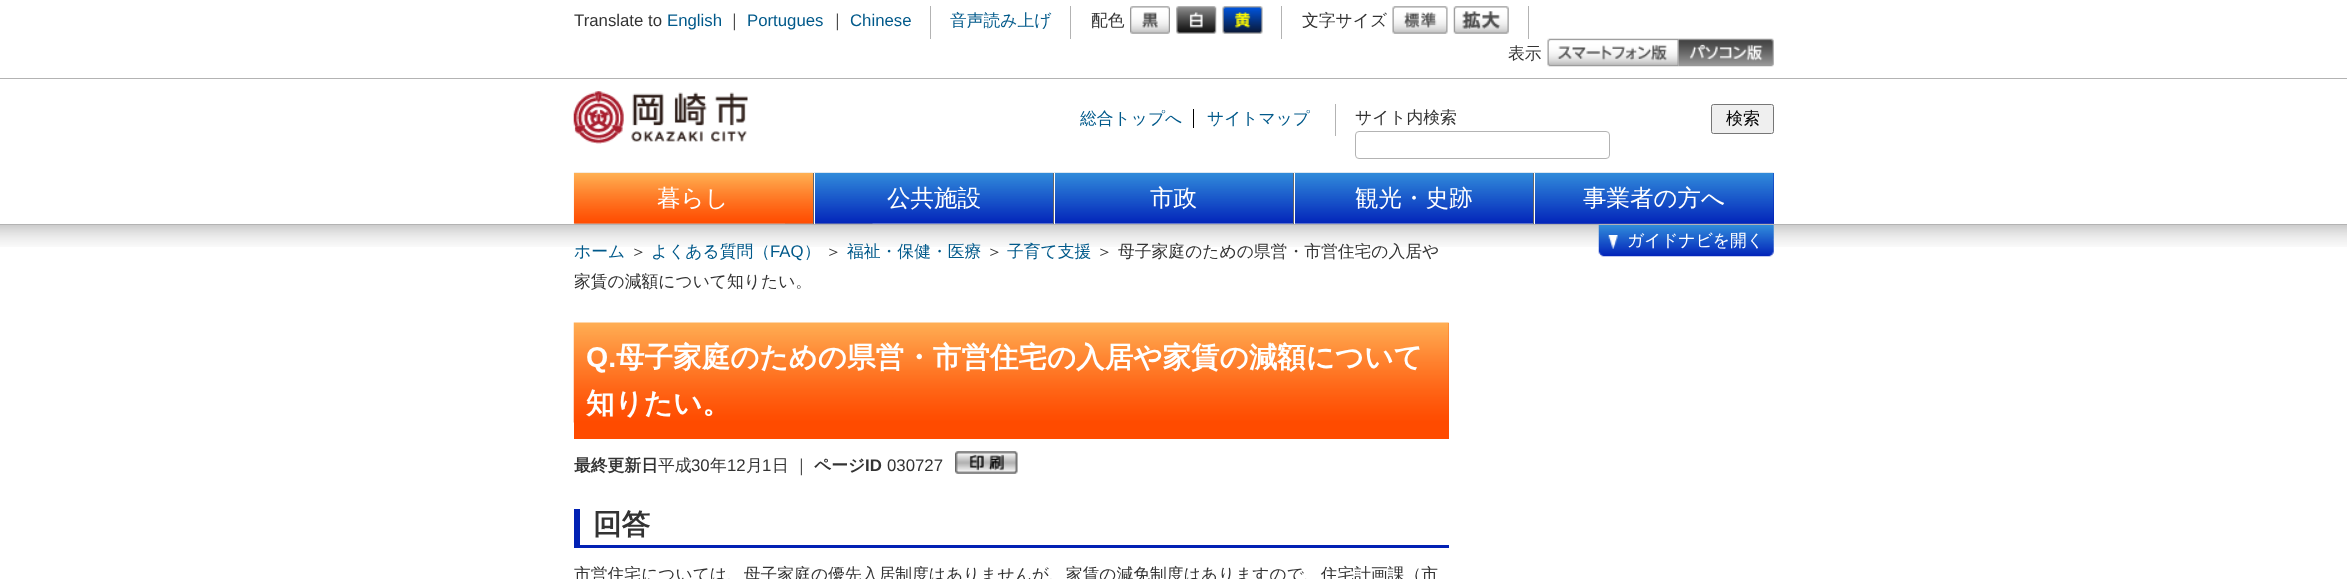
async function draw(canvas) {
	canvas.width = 2347;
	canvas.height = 579;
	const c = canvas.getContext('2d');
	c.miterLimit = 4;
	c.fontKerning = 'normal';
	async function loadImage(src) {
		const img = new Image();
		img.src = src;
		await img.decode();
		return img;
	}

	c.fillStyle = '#fff';
	c.fillRect(0, 0, 2347, 579);
	c.fillStyle = '#b3b3b3';
	c.fillRect(0, 78, 2347, 1);
	c.fillRect(930, 6, 1, 33);
	c.font = '16.8px Liberation Sans';
	c.fillStyle = '#333';
	c.fillText('Translate to', 574, 26);
	c.fillStyle = '#00598a';
	c.fillText('English', 667, 26);
	c.font = '500 16.8px WenQuanYi Zen Hei';
	c.fillStyle = '#333';
	c.fillText('｜', 726, 26);
	c.font = '16.8px Liberation Sans';
	c.fillStyle = '#00598a';
	c.fillText('Portugues', 747, 26);
	c.font = '500 16.8px WenQuanYi Zen Hei';
	c.fillStyle = '#333';
	c.fillText('｜', 829, 26);
	c.font = '16.8px Liberation Sans';
	c.fillStyle = '#00598a';
	c.fillText('Chinese', 850, 26);
	c.fillStyle = '#b3b3b3';
	c.fillRect(1070, 6, 1, 33);
	c.font = '500 16.8px WenQuanYi Zen Hei';
	c.fillStyle = '#00598a';
	c.fillText('音声読み上げ', 950, 26);
	c.fillStyle = '#b3b3b3';
	c.fillRect(1281, 6, 1, 33);
	c.fillStyle = '#333';
	c.fillText('配色', 1091, 26);
	c.drawImage(await loadImage('img1.png'), 1130, 6, 40, 28);
	c.drawImage(await loadImage('img2.png'), 1176, 6, 41, 28);
	c.drawImage(await loadImage('img3.png'), 1222, 6, 41, 28);
	c.fillStyle = '#b3b3b3';
	c.fillRect(1528, 6, 1, 33);
	c.fillStyle = '#333';
	c.fillText('文字サイズ', 1302, 26);
	c.drawImage(await loadImage('img4.png'), 1392, 6, 56, 28);
	c.drawImage(await loadImage('img5.png'), 1453, 6, 56, 28);
	c.fillText('表示', 1508, 59);
	c.drawImage(await loadImage('img6.png'), 1547, 38, 132, 29);
	c.drawImage(await loadImage('img7.png'), 1678, 38, 96, 29);
	c.drawImage(await loadImage('img8.png'), 573, 91, 175, 53);
	c.fillStyle = '#b3b3b3';
	c.fillRect(1335, 104, 1, 32);
	c.fillStyle = '#00598a';
	c.fillText('総合トップへ', 1080, 124);
	c.fillText('サイトマップ', 1207, 124);
	c.fillStyle = '#000';
	c.fillRect(1193, 109, 1, 19);
	c.fillStyle = '#333';
	c.fillText('サイト内検索', 1355, 123);
	c.fillStyle = '#efefef';
	c.beginPath();
	c.roundRect(1711.5, 104.5, 62, 29, 2);
	c.fill();
	c.strokeStyle = '#767676';
	c.stroke();
	c.font = '500 17px WenQuanYi Zen Hei';
	c.fillStyle = '#000';
	c.fillText('検索', 1726, 124);
	c.beginPath();
	c.roundRect(1355.5, 131.5, 254, 27, 3.5);
	c.strokeStyle = '#b3b3b3';
	c.stroke();
	c.drawImage(await loadImage('img12.png'), 575, 223, 210, 1);
	c.drawImage(await loadImage('img13.png'), 785, 223, 88, 1);
	c.drawImage(await loadImage('img9.png'), 573, 172, 241, 52);
	c.fillStyle = '#666';
	c.fillRect(813, 173, 1, 51);
	c.font = '500 23.5px WenQuanYi Zen Hei';
	c.fillStyle = '#fff';
	c.fillText('暮らし', 657, 206);
	c.drawImage(await loadImage('img10.png'), 813, 172, 241, 52);
	c.fillStyle = '#666';
	c.fillRect(1053, 173, 1, 51);
	c.fillStyle = '#fff';
	c.fillRect(814, 173, 1, 51);
	c.fillText('公共施設', 887, 206);
	c.drawImage(await loadImage('img11.png'), 1053, 172, 241, 52);
	c.fillStyle = '#666';
	c.fillRect(1293, 173, 1, 51);
	c.fillStyle = '#fff';
	c.fillRect(1054, 173, 1, 51);
	c.fillText('市政', 1150, 206);
	c.drawImage(await loadImage('img11.png'), 1293, 172, 241, 52);
	c.fillStyle = '#666';
	c.fillRect(1533, 173, 1, 51);
	c.fillStyle = '#fff';
	c.fillRect(1294, 173, 1, 51);
	c.fillText('観光・史跡', 1355, 206);
	c.fillStyle = '#0222b9';
	c.fillRect(1535, 173, 239, 51);
	c.drawImage(await loadImage('img11.png'), 1533, 172, 241, 52);
	c.fillStyle = '#fff';
	c.fillRect(1534, 173, 1, 51);
	c.fillText('事業者の方へ', 1583, 206);
	c.drawImage(await loadImage('img14.png'), 0, 225, 2347, 22);
	c.fillStyle = '#b3b3b3';
	c.fillRect(0, 224, 2347, 1);
	c.font = '500 16.8px WenQuanYi Zen Hei';
	c.fillStyle = '#00598a';
	c.fillText('ホーム', 574, 257);
	c.fillStyle = '#333';
	c.fillText('＞', 630, 257);
	c.fillStyle = '#00598a';
	c.fillText('よくある質問（', 651, 257);
	c.font = '16.8px Liberation Sans';
	c.fillText('FAQ', 770, 257);
	c.font = '500 16.8px WenQuanYi Zen Hei';
	c.fillText('）', 804, 257);
	c.fillStyle = '#333';
	c.fillText('＞', 825, 257);
	c.fillStyle = '#00598a';
	c.fillText('福祉・保健・医療', 847, 257);
	c.fillStyle = '#333';
	c.fillText('＞', 986, 257);
	c.fillStyle = '#00598a';
	c.fillText('子育て支援', 1007, 257);
	c.fillStyle = '#333';
	for (const [text, x, y] of [
		['＞', 1096, 257],
		['母子家庭のための県営・市営住宅の入居や', 1118, 257],
		['家賃の減額について知りたい。', 574, 287],
	]) {
		c.fillText(text, x, y);
	}
	c.drawImage(await loadImage('img15.png'), 1598, 225, 176, 32);
	c.drawImage(await loadImage('img16.png'), 1608, 235, 10, 14);
	c.fillStyle = '#fff';
	c.fillText('ガイドナビを開く', 1627, 246);
	c.fillStyle = '#ff4b00';
	c.fillRect(574, 323, 875, 116);
	c.drawImage(await loadImage('img17.png'), 573, 322, 876, 101);
	c.font = 'bold 28.55px Liberation Sans';
	c.fillStyle = '#fff';
	c.fillText('Q.', 586, 367);
	c.font = 'bold 28.55px WenQuanYi Zen Hei';
	c.fillText('母子家庭のための県営・市営住宅の入居や家賃の減額について', 616, 367);
	c.fillText('知りたい。', 586, 413);
	c.font = 'bold 16.8px WenQuanYi Zen Hei';
	c.fillStyle = '#333';
	c.fillText('最終更新日', 574, 471);
	c.font = '500 16.8px WenQuanYi Zen Hei';
	c.fillText('平成', 658, 471);
	c.font = '16.8px Liberation Sans';
	c.fillText('30', 691, 471);
	c.font = '500 16.8px WenQuanYi Zen Hei';
	c.fillText('年', 710, 471);
	c.font = '16.8px Liberation Sans';
	c.fillText('12', 727, 471);
	c.font = '500 16.8px WenQuanYi Zen Hei';
	c.fillText('月', 746, 471);
	c.font = '16.8px Liberation Sans';
	c.fillText('1', 762, 471);
	c.font = '500 16.8px WenQuanYi Zen Hei';
	c.fillText('日', 772, 471);
	c.fillText('｜', 793, 471);
	c.font = 'bold 16.8px WenQuanYi Zen Hei';
	c.fillText('ページ', 814, 471);
	c.font = 'bold 16.8px Liberation Sans';
	c.fillText('ID', 865, 471);
	c.font = '16.8px Liberation Sans';
	c.fillText('030727', 887, 471);
	c.drawImage(await loadImage('img18.png'), 955, 451, 63, 23);
	c.fillStyle = '#0221b4';
	c.fillRect(574, 545, 875, 3);
	c.fillRect(574, 509, 6, 39);
	c.font = 'bold 28.55px WenQuanYi Zen Hei';
	c.fillStyle = '#333';
	c.fillText('回答', 593, 534);
	c.font = '500 16.8px WenQuanYi Zen Hei';
	c.fillText('市営住宅については、母子家庭の優先入居制度はありませんが、家賃の減免制度はありますので、住宅計画課（市', 574, 580);
}

draw(document.querySelector('canvas'));
